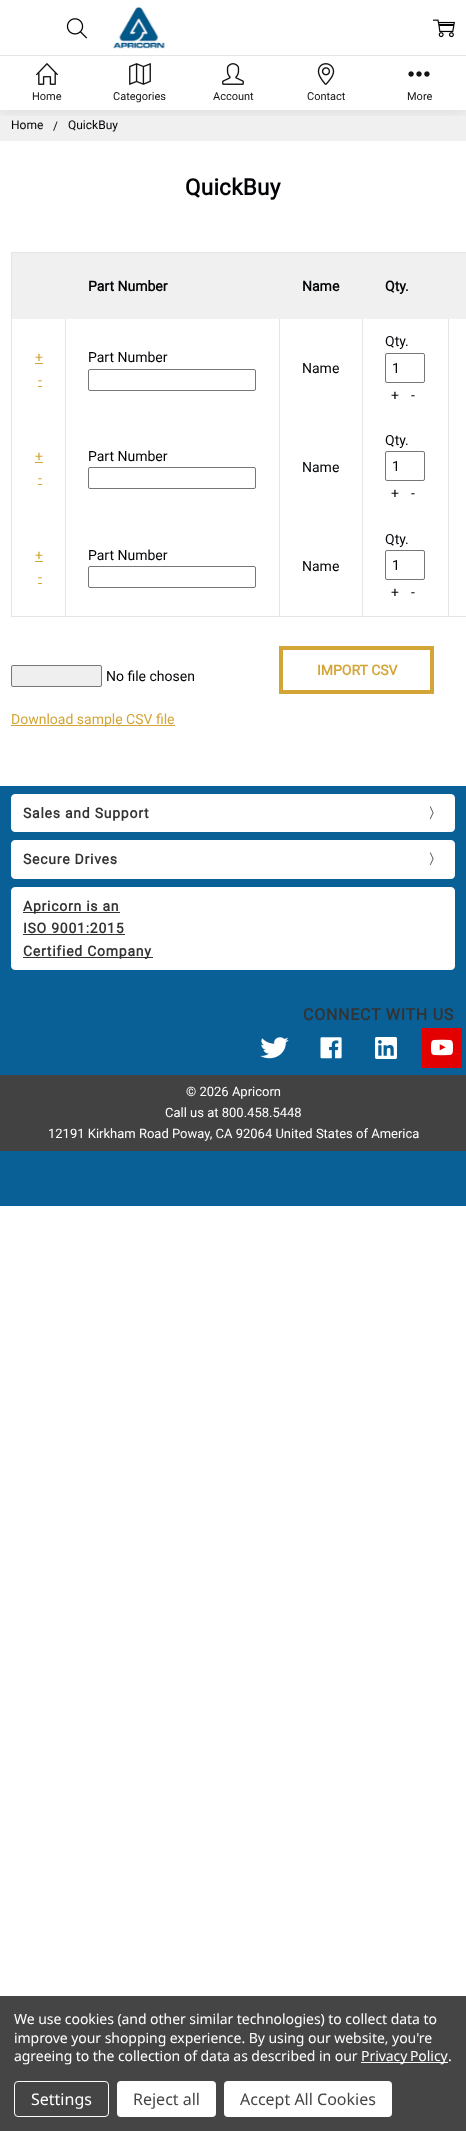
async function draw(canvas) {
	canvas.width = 466;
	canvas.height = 2131;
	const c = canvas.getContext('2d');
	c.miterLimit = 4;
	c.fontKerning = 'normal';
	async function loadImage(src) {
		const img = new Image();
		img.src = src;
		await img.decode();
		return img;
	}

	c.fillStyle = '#fff';
	c.fillRect(0, 0, 466, 2131);
	c.fillStyle = '#f0f0f0';
	c.fillRect(0, 110, 466, 31);
	c.save();
	c.beginPath();
	c.rect(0, 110, 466, 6);
	c.clip();
	c.fillStyle = '#0000001a';
	c.filter = 'blur(7.5px)';
	c.beginPath();
	c.rect(0, 55, 466, 55);
	c.fill();
	c.filter = 'none';
	c.restore();
	c.fillStyle = '#fff';
	c.fillRect(0, 45, 466, 10);
	c.fillStyle = '#e5e5e5';
	c.fillRect(0, 55, 466, 1);
	c.drawImage(await loadImage('img1.png'), 113, 6, 52, 43);
	c.drawImage(await loadImage('img2.png'), 66, 18, 22, 21);
	c.drawImage(await loadImage('img3.png'), 433, 19, 22, 19);
	c.drawImage(await loadImage('img4.png'), 36, 63, 22, 22);
	c.font = '11px Roboto';
	c.fillStyle = '#131313';
	c.fillText('Home', 32, 100);
	c.drawImage(await loadImage('img5.png'), 129, 63, 22, 22);
	c.fillText('Categories', 113, 100);
	c.drawImage(await loadImage('img6.png'), 222, 63, 22, 22);
	c.fillText('Account', 213, 100);
	c.drawImage(await loadImage('img7.png'), 317, 63, 18, 22);
	c.fillText('Contact', 307, 100);
	c.drawImage(await loadImage('img8.png'), 408, 71, 22, 6);
	c.fillText('More', 407, 100);
	c.font = '12px Roboto';
	c.fillStyle = '#010306';
	for (const [text, x, y] of [
		['Home', 11, 129],
		['/', 53, 130],
		['QuickBuy', 68, 129],
	]) {
		c.fillText(text, x, y);
	}
	c.letterSpacing = '0.25px';
	c.font = 'bold 22.5px Roboto';
	c.fillText('QuickBuy', 185, 195);
	for (const [x, y, w, h, color] of [
		[11, 252, 455, 1, '#e5e5e5'],
		[11, 616, 455, 1, '#e5e5e5'],
		[11, 252, 1, 365, '#e5e5e5'],
		[12, 253, 454, 66, '#f0f0f0'],
	]) {
		c.fillStyle = color;
		c.fillRect(x, y, w, h);
	}
	c.letterSpacing = '0px';
	c.font = 'bold 14px Roboto';
	c.fillStyle = '#010306';
	for (const [text, x, y] of [
		['Part Number', 88, 291],
		['Name', 302, 291],
		['Qty.', 385, 291],
	]) {
		c.fillText(text, x, y);
	}
	c.font = '14px Roboto';
	c.fillStyle = '#d3a537';
	c.fillText('+', 35, 362);
	c.fillRect(35, 363, 8, 1);
	c.fillText('-', 38, 385);
	c.fillRect(38, 386, 4, 1);
	c.fillStyle = '#010306';
	c.fillText('Part Number', 88, 362);
	c.beginPath();
	c.roundRect(88.5, 369.5, 167, 21, 1.5);
	c.strokeStyle = '#767676';
	c.stroke();
	c.fillText('Name', 302, 373);
	c.fillText('Qty.', 385, 346);
	c.beginPath();
	c.roundRect(385.5, 353.5, 39, 29, 1.5);
	c.stroke();
	for (const [text, x, y] of [
		['1', 392, 373],
		['+', 391, 400],
		['-', 411, 400],
	]) {
		c.fillText(text, x, y);
	}
	c.fillStyle = '#d3a537';
	c.fillText('+', 35, 461);
	c.fillRect(35, 462, 8, 1);
	c.fillText('-', 38, 483);
	c.fillRect(38, 484, 4, 1);
	c.fillStyle = '#010306';
	c.fillText('Part Number', 88, 461);
	c.beginPath();
	c.roundRect(88.5, 467.5, 167, 21, 1.5);
	c.stroke();
	c.fillText('Name', 302, 472);
	c.fillText('Qty.', 385, 445);
	c.beginPath();
	c.roundRect(385.5, 451.5, 39, 29, 1.5);
	c.stroke();
	for (const [text, x, y] of [
		['1', 392, 471],
		['+', 391, 498],
		['-', 411, 498],
	]) {
		c.fillText(text, x, y);
	}
	c.fillStyle = '#d3a537';
	c.fillText('+', 35, 560);
	c.fillRect(35, 561, 8, 1);
	c.fillText('-', 38, 582);
	c.fillRect(38, 583, 4, 1);
	c.fillStyle = '#e5e5e5';
	c.fillRect(65, 319, 1, 298);
	c.fillStyle = '#010306';
	c.fillText('Part Number', 88, 560);
	c.beginPath();
	c.roundRect(88.5, 566.5, 167, 21, 1.5);
	c.stroke();
	c.fillStyle = '#e5e5e5';
	c.fillRect(279, 319, 1, 298);
	c.fillStyle = '#010306';
	c.fillText('Name', 302, 571);
	c.fillStyle = '#e5e5e5';
	c.fillRect(362, 319, 1, 298);
	c.fillStyle = '#010306';
	c.fillText('Qty.', 385, 544);
	c.beginPath();
	c.roundRect(385.5, 550.5, 39, 29, 1.5);
	c.stroke();
	for (const [text, x, y] of [
		['1', 392, 570],
		['+', 391, 597],
		['-', 411, 597],
	]) {
		c.fillText(text, x, y);
	}
	c.fillStyle = '#e5e5e5';
	c.fillRect(448, 319, 1, 298);
	c.fillStyle = '#efefef';
	c.beginPath();
	c.roundRect(11.5, 665.5, 90, 21, 1.5);
	c.fill();
	c.stroke();
	c.fillStyle = '#010306';
	c.fillText('No file chosen', 106, 681);
	c.strokeStyle = '#d3a537';
	c.lineWidth = 4;
	c.strokeRect(281, 648, 151, 44);
	c.font = 'bold 14px Roboto';
	c.fillStyle = '#d3a537';
	c.fillText('IMPORT CSV', 317, 675);
	c.fillRect(11, 725, 164, 1);
	c.font = '14px Roboto';
	c.fillText('Download sample CSV file', 11, 724);
	c.fillStyle = '#096097';
	c.fillRect(0, 786, 466, 420);
	c.fillStyle = '#fff';
	c.beginPath();
	c.roundRect(11.5, 794.5, 443, 37, 3.5);
	c.fill();
	c.strokeStyle = '#fff';
	c.lineWidth = 1;
	c.stroke();
	c.letterSpacing = '0.75px';
	c.font = 'bold 14px Roboto';
	c.fillStyle = '#333';
	c.fillText('Sales and Support', 23, 818);
	c.font = 'bold 14px WenQuanYi Zen Hei';
	c.fillStyle = '#5c5c5c';
	c.fillText('〉', 428, 818);
	c.fillStyle = '#fff';
	c.beginPath();
	c.roundRect(11.5, 840.5, 443, 38, 3.5);
	c.fill();
	c.stroke();
	c.font = 'bold 14px Roboto';
	c.fillStyle = '#333';
	c.fillText('Secure Drives', 23, 864);
	c.font = 'bold 14px WenQuanYi Zen Hei';
	c.fillStyle = '#5c5c5c';
	c.fillText('〉', 428, 864);
	c.fillStyle = '#fff';
	c.beginPath();
	c.roundRect(11.5, 887.5, 443, 82, 3.5);
	c.fill();
	c.stroke();
	c.fillStyle = '#333';
	c.fillRect(23, 912, 97, 1);
	c.font = 'bold 14px Roboto';
	c.fillText('Apricorn is an', 23, 911);
	c.fillText('ISO 9001:2015', 23, 933);
	c.fillRect(23, 934, 102, 1);
	c.fillRect(23, 957, 130, 1);
	c.fillText('Certified Company', 23, 956);
	c.font = 'bold 16px Roboto';
	c.fillText('CONNECT WITH US', 303, 1020);
	c.drawImage(await loadImage('img9.png'), 260, 1037, 29, 22);
	c.drawImage(await loadImage('img10.png'), 320, 1037, 22, 22);
	c.drawImage(await loadImage('img11.png'), 375, 1037, 22, 22);
	c.fillStyle = '#e20000';
	c.fillRect(422, 1028, 40, 40);
	c.drawImage(await loadImage('img12.png'), 431, 1039, 22, 17);
	c.fillStyle = '#424242';
	c.fillRect(0, 1075, 466, 76);
	c.letterSpacing = '0px';
	c.font = '13px Roboto';
	c.fillStyle = '#fff';
	for (const [text, x, y] of [
		['© 2026 Apricorn', 186, 1096],
		['Call us at 800.458.5448', 165, 1117],
		['12191 Kirkham Road Poway, CA 92064 United States of America', 48, 1138],
	]) {
		c.fillText(text, x, y);
	}
	c.fillStyle = '#454545';
	c.fillRect(0, 1996, 466, 135);
	c.letterSpacing = '-0.05px';
	c.font = '14px Noto Sans';
	c.fillStyle = '#fff';
	for (const [text, x, y] of [
		['We use cookies (and other similar technologies) to collect data to', 14, 2024],
		['improve your shopping experience. By using our website, you\'re', 14, 2043],
		['agreeing to the collection of data as described in our', 14, 2061],
	]) {
		c.fillText(text, x, y);
	}
	c.fillRect(361, 2062, 87, 1);
	c.wordSpacing = '-1px';
	c.fillText('Privacy Policy', 361, 2061);
	c.wordSpacing = '0px';
	c.fillText('.', 448, 2061);
	c.beginPath();
	c.roundRect(14.5, 2081.5, 94, 35, 3.5);
	c.stroke();
	c.letterSpacing = '0px';
	c.font = '16px Noto Sans';
	c.fillText('Settings', 31, 2105);
	c.beginPath();
	c.roundRect(117, 2081, 99, 36, 4);
	c.fill();
	c.fillStyle = '#454545';
	c.fillText('Reject all', 133, 2105);
	c.fillStyle = '#fff';
	c.beginPath();
	c.roundRect(224, 2081, 168, 36, 4);
	c.fill();
	c.fillStyle = '#454545';
	c.fillText('Accept All Cookies', 240, 2105);
}

draw(document.querySelector('canvas'));
